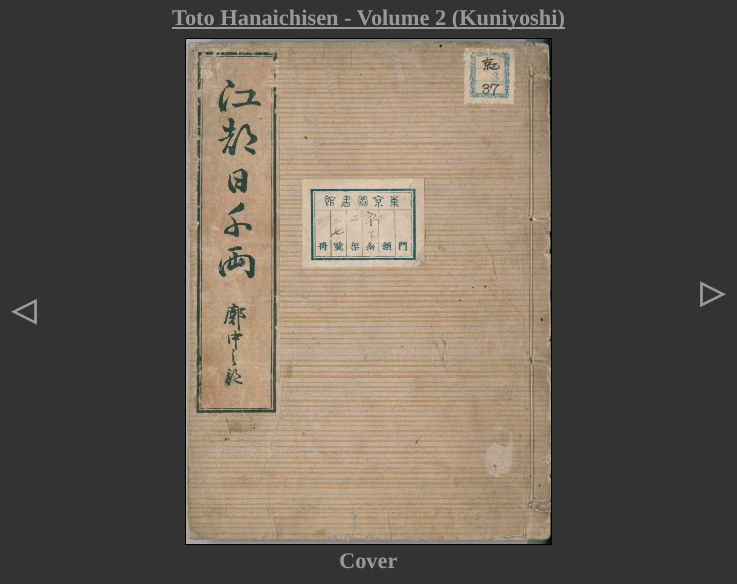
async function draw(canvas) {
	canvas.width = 737;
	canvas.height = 584;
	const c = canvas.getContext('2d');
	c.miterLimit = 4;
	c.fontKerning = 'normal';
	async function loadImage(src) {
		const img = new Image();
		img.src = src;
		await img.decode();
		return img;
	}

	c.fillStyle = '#333';
	c.fillRect(0, 0, 737, 584);
	c.fillStyle = '#999';
	c.fillRect(172, 27, 393, 2);
	c.font = 'bold 22.4px Liberation Serif';
	c.fillText('Toto Hanaichisen - Volume 2 (Kuniyoshi)', 172, 25);
	c.strokeStyle = '#000';
	c.strokeRect(185.5, 38.5, 366, 506);
	c.drawImage(await loadImage('img1.png'), 186, 39, 365, 505);
	c.font = 'bold 32px DejaVu Sans';
	c.fillText('▷', 700, 303);
	c.save();
	c.translate(37, 303);
	c.rotate(180 * Math.PI / 180);
	c.fillText('▷', 0, 0);
	c.restore();
	c.font = 'bold 22.4px Liberation Serif';
	c.fillText('Cover', 339, 568);
}

draw(document.querySelector('canvas'));
